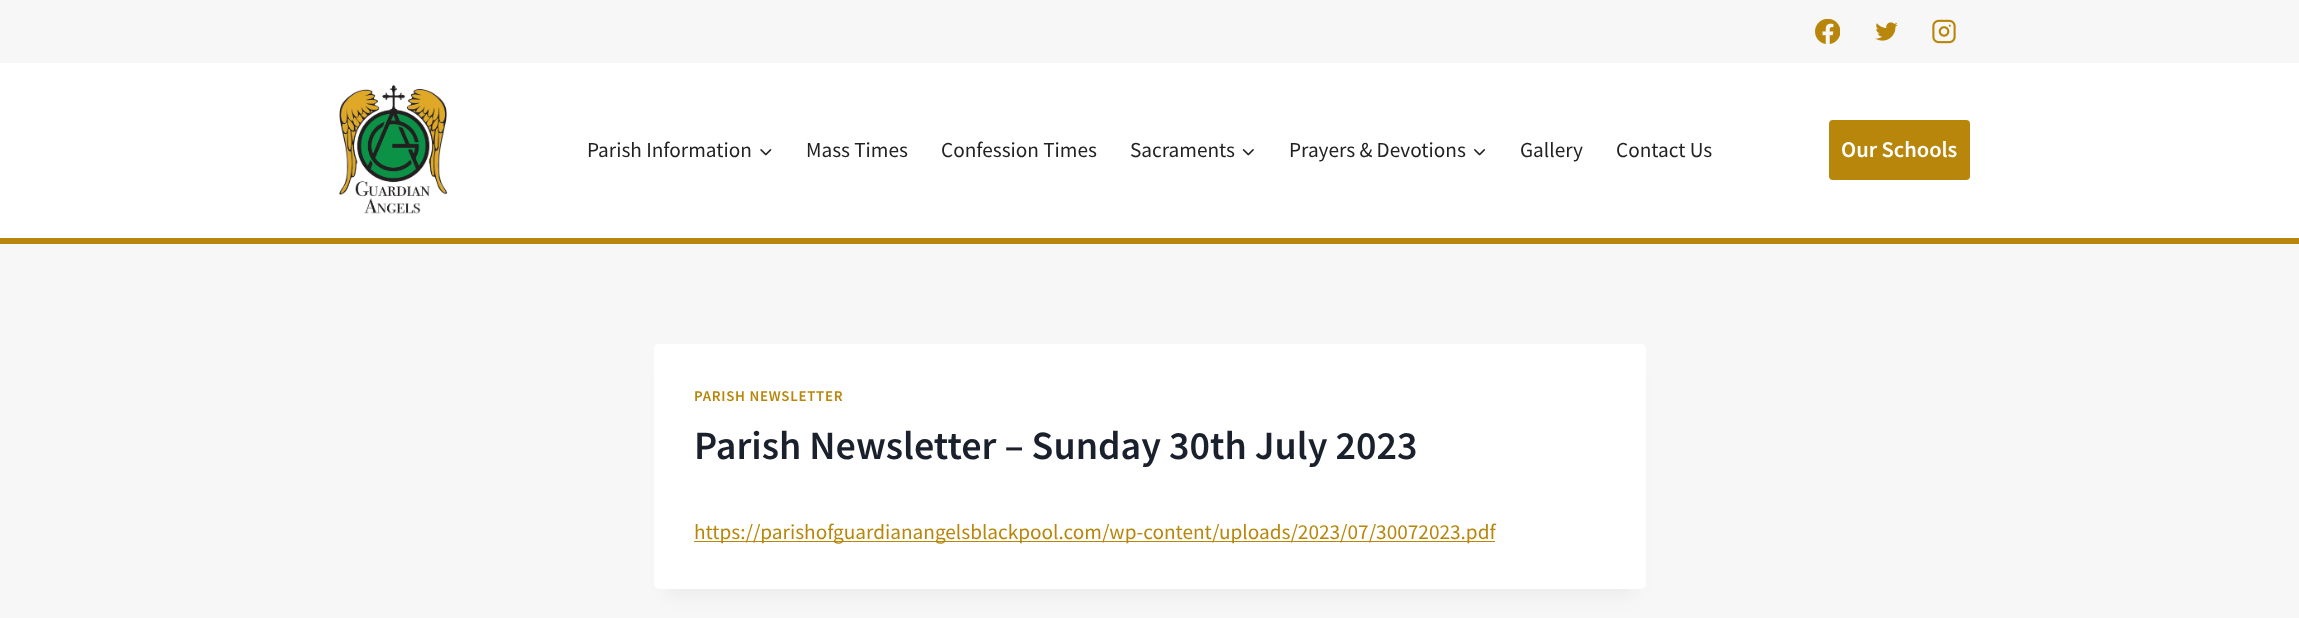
async function draw(canvas) {
	canvas.width = 2299;
	canvas.height = 618;
	const c = canvas.getContext('2d');
	c.miterLimit = 4;
	c.fontKerning = 'normal';
	async function loadImage(src) {
		const img = new Image();
		img.src = src;
		await img.decode();
		return img;
	}

	c.fillStyle = '#f7f7f7';
	c.fillRect(0, 0, 2299, 618);
	c.fillStyle = '#fff';
	c.fillRect(0, 63, 2299, 175);
	c.drawImage(await loadImage('img1.png'), 1815, 19, 25, 25);
	c.drawImage(await loadImage('img2.png'), 1875, 22, 23, 19);
	c.drawImage(await loadImage('img3.png'), 1932, 19, 24, 25);
	c.fillStyle = '#b8860b';
	c.fillRect(0, 238, 2299, 6);
	c.drawImage(await loadImage('img4.png'), 339, 85, 109, 129);
	c.font = '21.25px Source Sans Pro';
	c.fillStyle = '#222';
	c.fillText('Parish Information', 587, 157);
	c.drawImage(await loadImage('img5.png'), 760, 149, 12, 7);
	for (const [text, x, y] of [
		['Mass Times', 806, 157],
		['Confession Times', 941, 157],
		['Sacraments', 1130, 157],
	]) {
		c.fillText(text, x, y);
	}
	c.drawImage(await loadImage('img6.png'), 1242, 149, 12, 7);
	c.fillText('Prayers & Devotions', 1289, 157);
	c.drawImage(await loadImage('img7.png'), 1474, 149, 12, 7);
	c.fillText('Gallery', 1520, 157);
	c.fillText('Contact Us', 1616, 157);
	c.fillStyle = '#b8860b';
	c.beginPath();
	c.roundRect(1829, 120, 141, 60, 4);
	c.fill();
	c.font = '600 22.5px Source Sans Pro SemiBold';
	c.fillStyle = '#fff';
	c.fillText('Our Schools', 1841, 157);
	c.fillStyle = '#0000000d';
	c.filter = 'blur(9.5px)';
	c.beginPath();
	c.rect(666, 375, 968, 220);
	c.fill();
	c.filter = 'none';
	c.fillStyle = '#fff';
	c.beginPath();
	c.roundRect(654, 344, 992, 245, 5);
	c.fill();
	c.letterSpacing = '0.75px';
	c.font = '600 14.9px Source Sans Pro SemiBold';
	c.fillStyle = '#b8860b';
	c.fillText('PARISH NEWSLETTER', 694, 401);
	c.letterSpacing = '0px';
	c.font = '600 40px Source Sans Pro SemiBold';
	c.fillStyle = '#1a202c';
	c.fillText('Parish Newsletter – Sunday 30th July 2023', 694, 459);
	c.fillStyle = '#b8860b';
	c.fillRect(694, 541, 801, 1);
	c.font = '21.25px Source Sans Pro';
	c.fillText('https://parishofguardianangelsblackpool.com/wp-content/uploads/2023/07/30072023.pdf', 694, 539);
}

draw(document.querySelector('canvas'));
